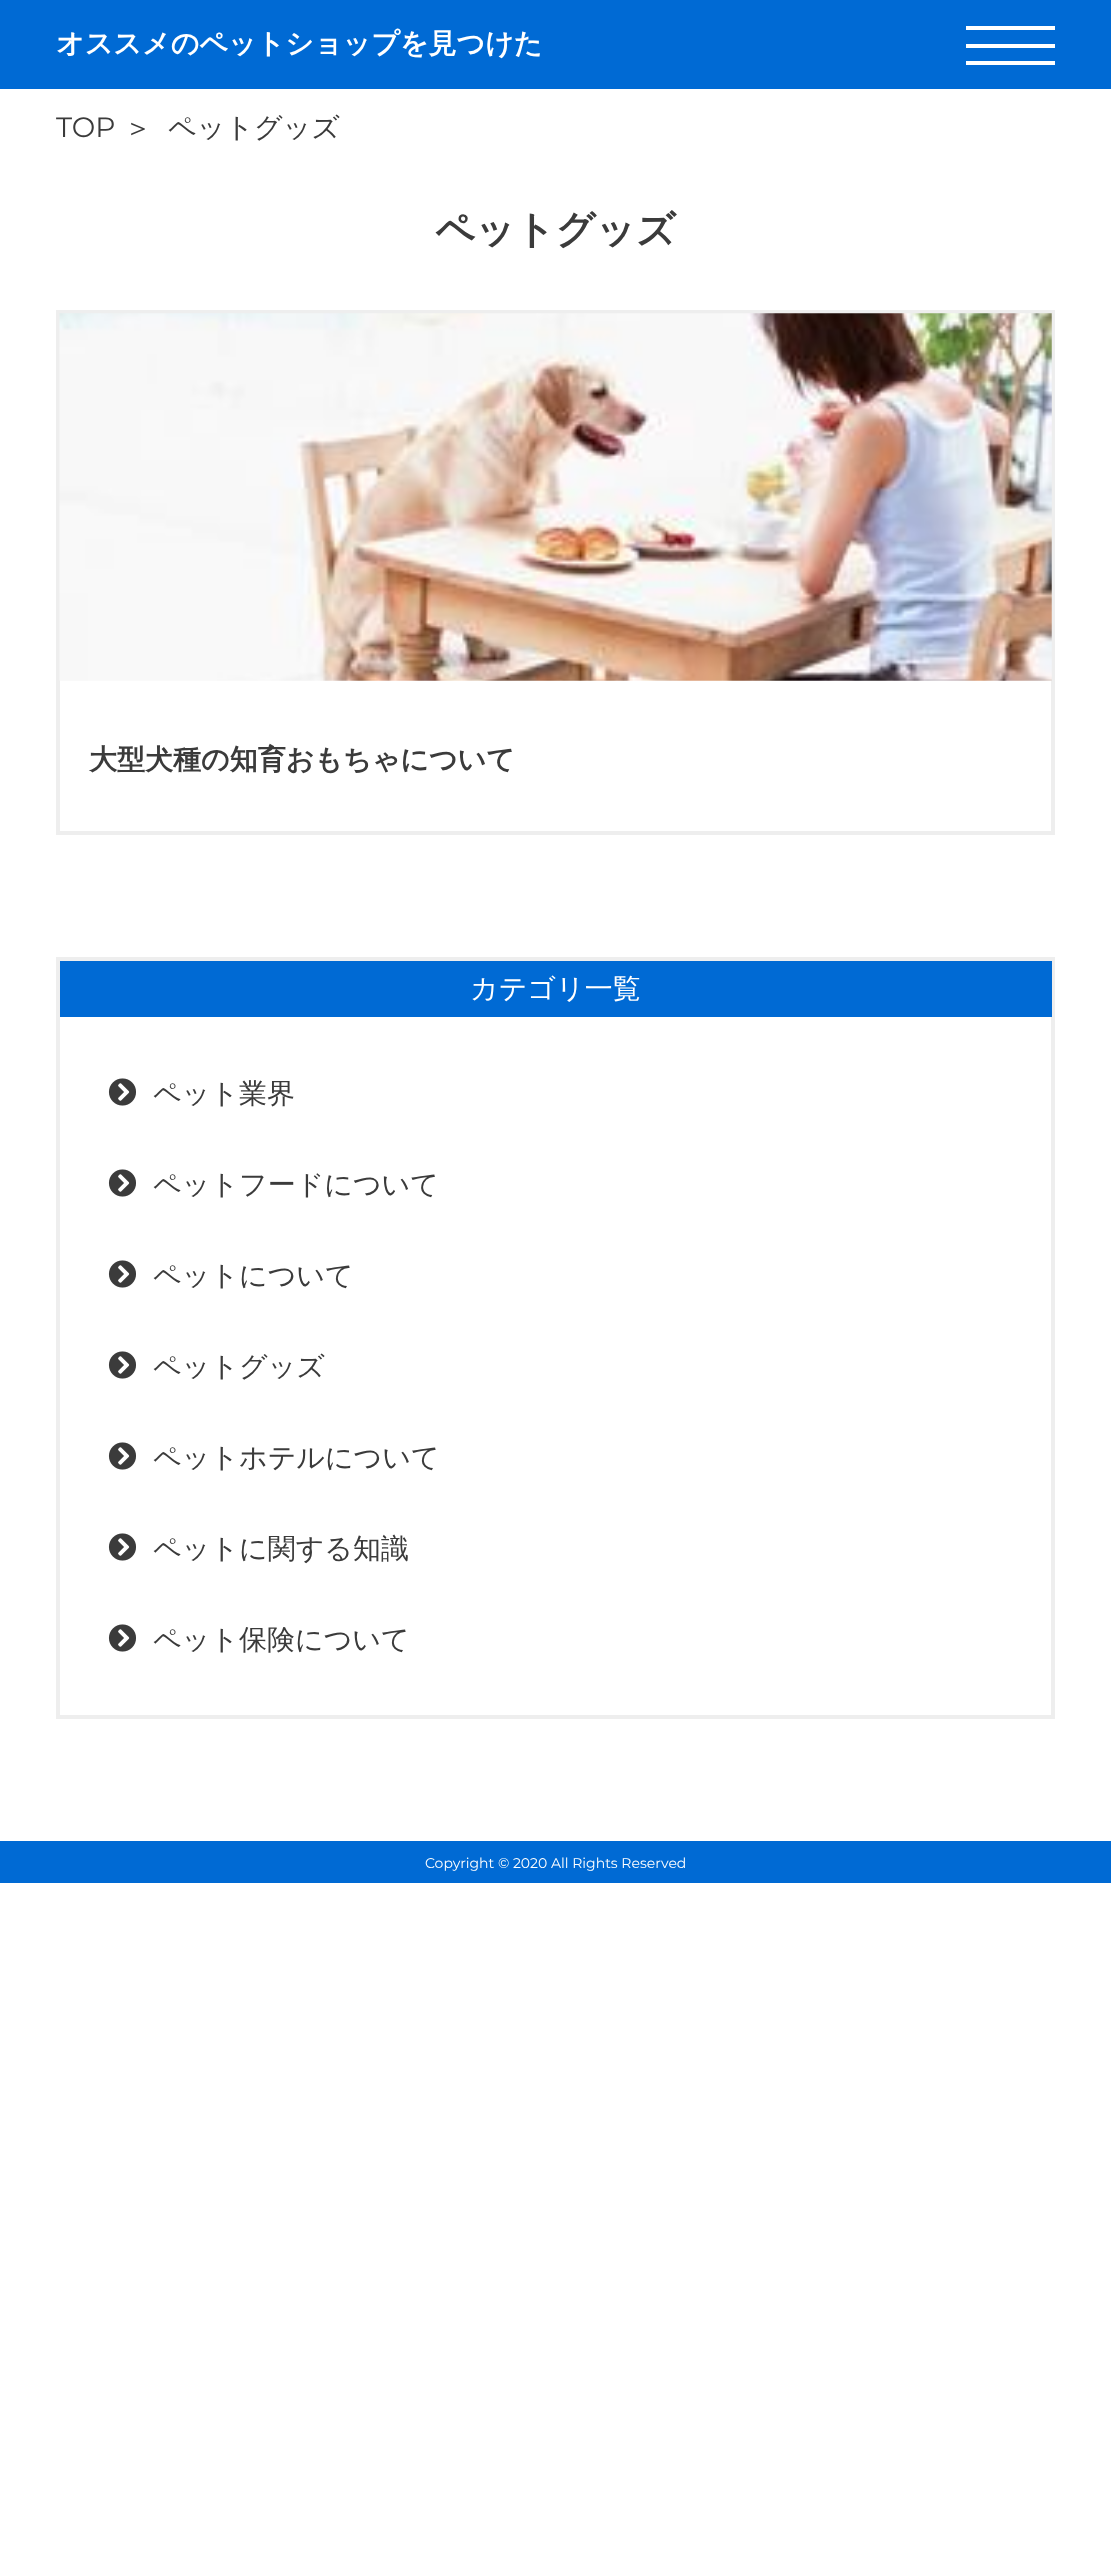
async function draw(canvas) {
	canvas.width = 1111;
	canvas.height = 2572;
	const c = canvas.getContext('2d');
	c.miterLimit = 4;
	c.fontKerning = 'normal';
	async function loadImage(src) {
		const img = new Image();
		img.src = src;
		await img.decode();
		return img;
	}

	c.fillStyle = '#fff';
	c.fillRect(0, 0, 1111, 2572);
	c.fillStyle = '#006ad4';
	c.fillRect(0, 0, 1111, 89);
	c.font = 'bold 28px WenQuanYi Zen Hei';
	c.fillStyle = '#fff';
	c.fillText('オススメのペットショップを見つけた', 56, 53);
	for (const [x, y, w, h, color] of [
		[966, 26, 89, 4, '#fff'],
		[966, 44, 89, 4, '#fff'],
		[966, 61, 89, 4, '#fff'],
	]) {
		c.fillStyle = color;
		c.fillRect(x, y, w, h);
	}
	c.font = '28px Montserrat';
	c.fillStyle = '#3b3b3b';
	c.fillText('TOP', 56, 137);
	c.font = '500 28px WenQuanYi Zen Hei';
	c.fillText('＞', 124, 137);
	c.fillText('ペットグッズ', 168, 137);
	c.font = 'bold 39.25px WenQuanYi Zen Hei';
	c.fillText('ペットグッズ', 435, 243);
	c.strokeStyle = '#eee';
	c.lineWidth = 4;
	c.strokeRect(58, 312, 995, 521);
	c.drawImage(await loadImage('img1.png'), 59, 313, 993, 368);
	c.font = 'bold 28px WenQuanYi Zen Hei';
	c.fillText('大型犬種の知育おもちゃについて', 89, 769);
	c.strokeRect(58, 959, 995, 758);
	c.fillStyle = '#006ad4';
	c.fillRect(60, 961, 992, 56);
	c.font = '500 28px WenQuanYi Zen Hei';
	c.fillStyle = '#fff';
	c.fillText('カテゴリ一覧', 470, 998);
	c.drawImage(await loadImage('img2.png'), 108, 1078, 28, 28);
	c.fillStyle = '#3b3b3b';
	c.fillText('ペット業界', 153, 1103);
	c.drawImage(await loadImage('img2.png'), 108, 1169, 28, 28);
	c.fillText('ペットフードについて', 153, 1194);
	c.drawImage(await loadImage('img2.png'), 108, 1260, 28, 28);
	c.fillText('ペットについて', 153, 1285);
	c.drawImage(await loadImage('img2.png'), 108, 1351, 28, 28);
	c.fillText('ペットグッズ', 153, 1376);
	c.drawImage(await loadImage('img2.png'), 108, 1442, 28, 28);
	c.fillText('ペットホテルについて', 153, 1467);
	c.drawImage(await loadImage('img2.png'), 108, 1533, 28, 28);
	c.fillText('ペットに関する知識', 153, 1558);
	c.drawImage(await loadImage('img2.png'), 108, 1624, 28, 28);
	c.fillText('ペット保険について', 153, 1649);
	c.fillStyle = '#006ad4';
	c.fillRect(0, 1841, 1111, 42);
	c.font = '14px Montserrat';
	c.fillStyle = '#fff';
	c.fillText('Copyright © 2020 All Rights Reserved', 425, 1868);
}

draw(document.querySelector('canvas'));
